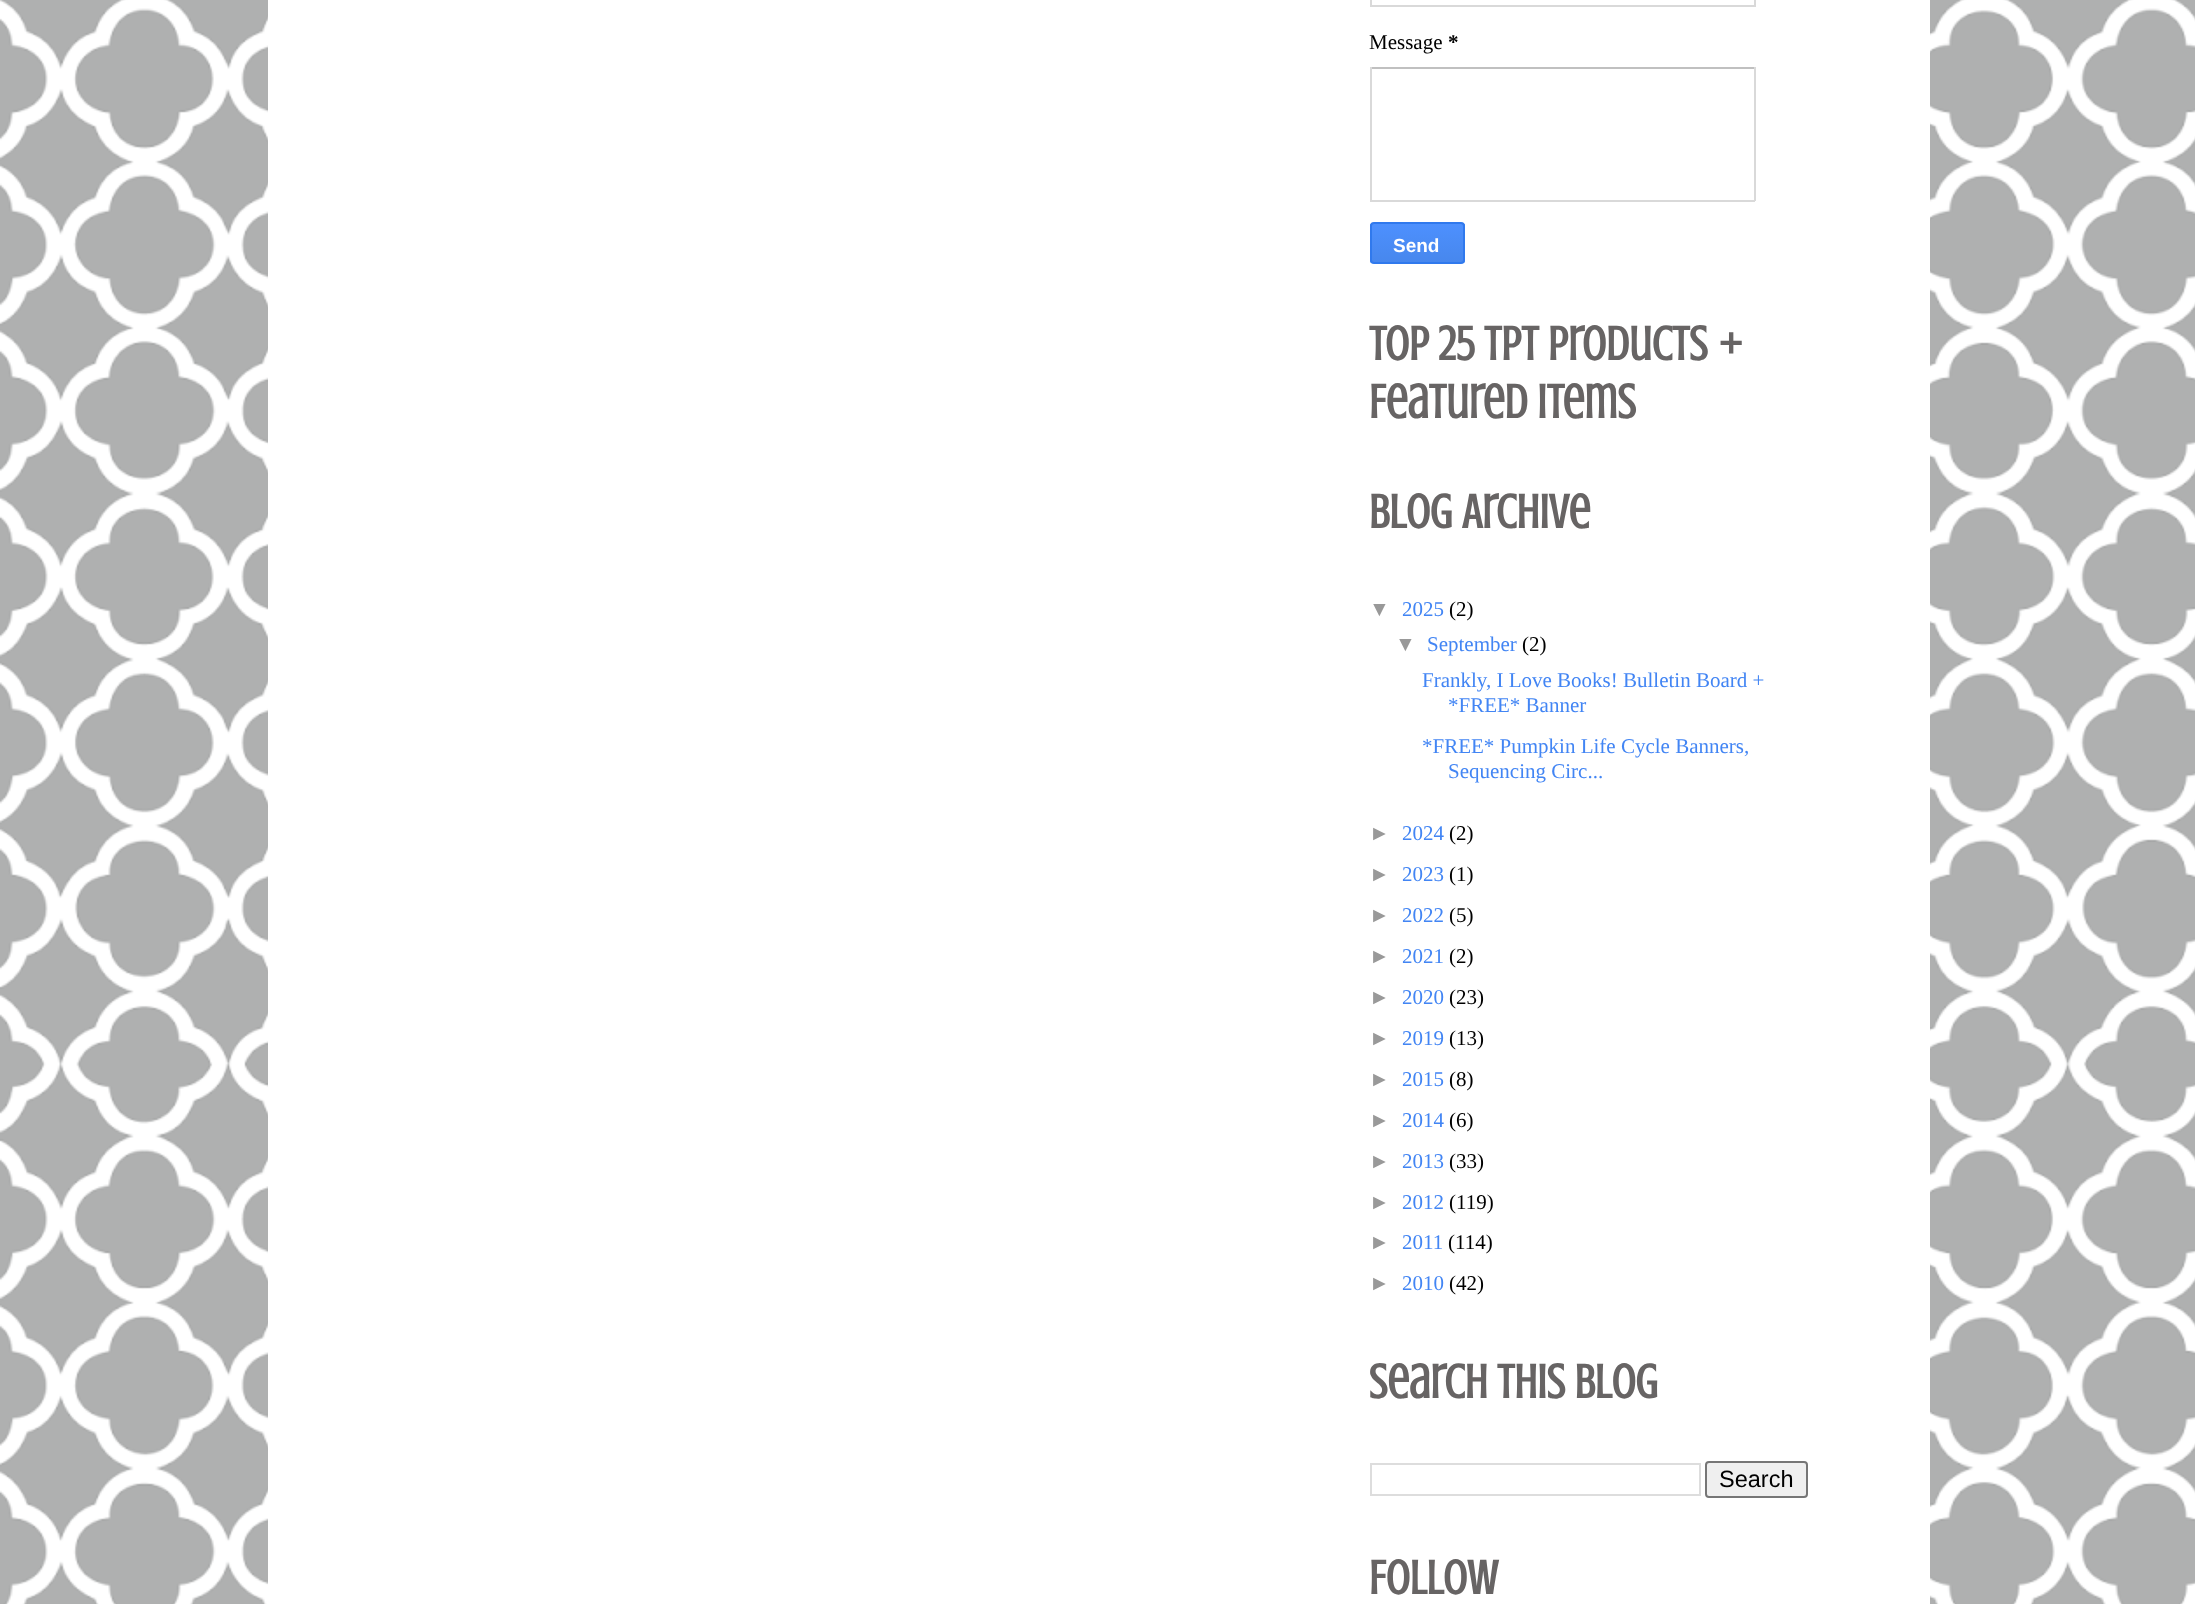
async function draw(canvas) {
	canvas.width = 2195;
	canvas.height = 1604;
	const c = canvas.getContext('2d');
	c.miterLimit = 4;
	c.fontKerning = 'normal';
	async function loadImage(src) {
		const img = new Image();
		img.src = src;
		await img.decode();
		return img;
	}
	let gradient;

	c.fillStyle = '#fff';
	c.fillRect(0, 0, 2195, 1604);
	c.drawImage(await loadImage('img1.png'), 0, 0, 2195, 1604);
	for (const [x, y, w, h, color] of [
		[268, 0, 1662, 1604, '#fff'],
		[1754, 0, 2, 7, '#d9d9d9'],
		[1370, 5, 385, 2, '#d9d9d9'],
		[1370, 0, 2, 7, '#d9d9d9'],
	]) {
		c.fillStyle = color;
		c.fillRect(x, y, w, h);
	}
	c.font = '21px Liberation Serif';
	c.fillStyle = '#000';
	c.fillText('Message', 1369, 49);
	c.font = 'bold 21px Liberation Serif';
	c.fillText('*', 1448, 49);
	for (const [x, y, w, h, color] of [
		[1370, 67, 385, 2, '#c0c0c0'],
		[1754, 67, 2, 134, '#d9d9d9'],
		[1370, 200, 385, 2, '#d9d9d9'],
		[1370, 67, 2, 134, '#d9d9d9'],
	]) {
		c.fillStyle = color;
		c.fillRect(x, y, w, h);
	}
	c.save();
	c.beginPath();
	c.roundRect(1370, 222, 95, 42, 4);
	c.clip();
	gradient = c.createLinearGradient(1418, 224, 1418, 263);
	gradient.addColorStop(0, '#4d90fe');
	gradient.addColorStop(1, '#4787ed');
	c.fillStyle = gradient;
	c.fillRect(1370, 224, 95, 39);
	c.restore();
	c.beginPath();
	c.roundRect(1371, 223, 93, 40, 3);
	c.strokeStyle = '#3079ed';
	c.lineWidth = 2;
	c.stroke();
	c.font = 'bold 19px Liberation Sans';
	c.fillStyle = '#fff';
	c.fillText('Send', 1393, 252);
	c.font = 'bold 49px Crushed';
	c.fillStyle = '#676464';
	for (const [text, x, y] of [
		['Top 25 TpT Products +', 1369, 360],
		['Featured Items', 1369, 418],
		['Blog Archive', 1369, 528],
	]) {
		c.fillText(text, x, y);
	}
	c.font = '21px Liberation Sans';
	c.fillStyle = '#999';
	c.fillText('▼', 1369, 616);
	c.font = '21px Liberation Serif';
	c.fillStyle = '#4285f4';
	c.fillText('2025', 1402, 616);
	c.fillStyle = '#000';
	c.fillText('(2)', 1449, 616);
	c.font = '21px Liberation Sans';
	c.fillStyle = '#999';
	c.fillText('▼', 1395, 651);
	c.font = '21px Liberation Serif';
	c.fillStyle = '#4285f4';
	c.fillText('September', 1427, 651);
	c.fillStyle = '#000';
	c.fillText('(2)', 1522, 651);
	c.fillStyle = '#4285f4';
	for (const [text, x, y] of [
		['Frankly, I Love Books! Bulletin Board +', 1422, 687],
		['*FREE* Banner', 1448, 712],
		['*FREE* Pumpkin Life Cycle Banners,', 1422, 753],
		['Sequencing Circ...', 1448, 778],
	]) {
		c.fillText(text, x, y);
	}
	c.font = '21px Liberation Sans';
	c.fillStyle = '#999';
	c.fillText('►', 1369, 840);
	c.font = '21px Liberation Serif';
	c.fillStyle = '#4285f4';
	c.fillText('2024', 1402, 840);
	c.fillStyle = '#000';
	c.fillText('(2)', 1449, 840);
	c.font = '21px Liberation Sans';
	c.fillStyle = '#999';
	c.fillText('►', 1369, 881);
	c.font = '21px Liberation Serif';
	c.fillStyle = '#4285f4';
	c.fillText('2023', 1402, 881);
	c.fillStyle = '#000';
	c.fillText('(1)', 1449, 881);
	c.font = '21px Liberation Sans';
	c.fillStyle = '#999';
	c.fillText('►', 1369, 922);
	c.font = '21px Liberation Serif';
	c.fillStyle = '#4285f4';
	c.fillText('2022', 1402, 922);
	c.fillStyle = '#000';
	c.fillText('(5)', 1449, 922);
	c.font = '21px Liberation Sans';
	c.fillStyle = '#999';
	c.fillText('►', 1369, 963);
	c.font = '21px Liberation Serif';
	c.fillStyle = '#4285f4';
	c.fillText('2021', 1402, 963);
	c.fillStyle = '#000';
	c.fillText('(2)', 1449, 963);
	c.font = '21px Liberation Sans';
	c.fillStyle = '#999';
	c.fillText('►', 1369, 1004);
	c.font = '21px Liberation Serif';
	c.fillStyle = '#4285f4';
	c.fillText('2020', 1402, 1004);
	c.fillStyle = '#000';
	c.fillText('(23)', 1449, 1004);
	c.font = '21px Liberation Sans';
	c.fillStyle = '#999';
	c.fillText('►', 1369, 1045);
	c.font = '21px Liberation Serif';
	c.fillStyle = '#4285f4';
	c.fillText('2019', 1402, 1045);
	c.fillStyle = '#000';
	c.fillText('(13)', 1449, 1045);
	c.font = '21px Liberation Sans';
	c.fillStyle = '#999';
	c.fillText('►', 1369, 1086);
	c.font = '21px Liberation Serif';
	c.fillStyle = '#4285f4';
	c.fillText('2015', 1402, 1086);
	c.fillStyle = '#000';
	c.fillText('(8)', 1449, 1086);
	c.font = '21px Liberation Sans';
	c.fillStyle = '#999';
	c.fillText('►', 1369, 1127);
	c.font = '21px Liberation Serif';
	c.fillStyle = '#4285f4';
	c.fillText('2014', 1402, 1127);
	c.fillStyle = '#000';
	c.fillText('(6)', 1449, 1127);
	c.font = '21px Liberation Sans';
	c.fillStyle = '#999';
	c.fillText('►', 1369, 1168);
	c.font = '21px Liberation Serif';
	c.fillStyle = '#4285f4';
	c.fillText('2013', 1402, 1168);
	c.fillStyle = '#000';
	c.fillText('(33)', 1449, 1168);
	c.font = '21px Liberation Sans';
	c.fillStyle = '#999';
	c.fillText('►', 1369, 1209);
	c.font = '21px Liberation Serif';
	c.fillStyle = '#4285f4';
	c.fillText('2012', 1402, 1209);
	c.fillStyle = '#000';
	c.fillText('(119)', 1449, 1209);
	c.font = '21px Liberation Sans';
	c.fillStyle = '#999';
	c.fillText('►', 1369, 1249);
	c.font = '21px Liberation Serif';
	c.fillStyle = '#4285f4';
	c.fillText('2011', 1402, 1249);
	c.fillStyle = '#000';
	c.fillText('(114)', 1448, 1249);
	c.font = '21px Liberation Sans';
	c.fillStyle = '#999';
	c.fillText('►', 1369, 1290);
	c.font = '21px Liberation Serif';
	c.fillStyle = '#4285f4';
	c.fillText('2010', 1402, 1290);
	c.fillStyle = '#000';
	c.fillText('(42)', 1449, 1290);
	c.font = 'bold 49px Crushed';
	c.fillStyle = '#676464';
	c.fillText('Search This Blog', 1369, 1398);
	c.strokeStyle = '#ddd';
	c.strokeRect(1371, 1464, 329, 31);
	c.fillStyle = '#efefef';
	c.beginPath();
	c.roundRect(1706, 1462, 101, 35, 3);
	c.fill();
	c.strokeStyle = '#767676';
	c.stroke();
	c.font = '23.5px Liberation Sans';
	c.fillStyle = '#000';
	c.fillText('Search', 1719, 1487);
	c.font = 'bold 49px Crushed';
	c.fillStyle = '#676464';
	c.fillText('Follow', 1369, 1594);
}

draw(document.querySelector('canvas'));
